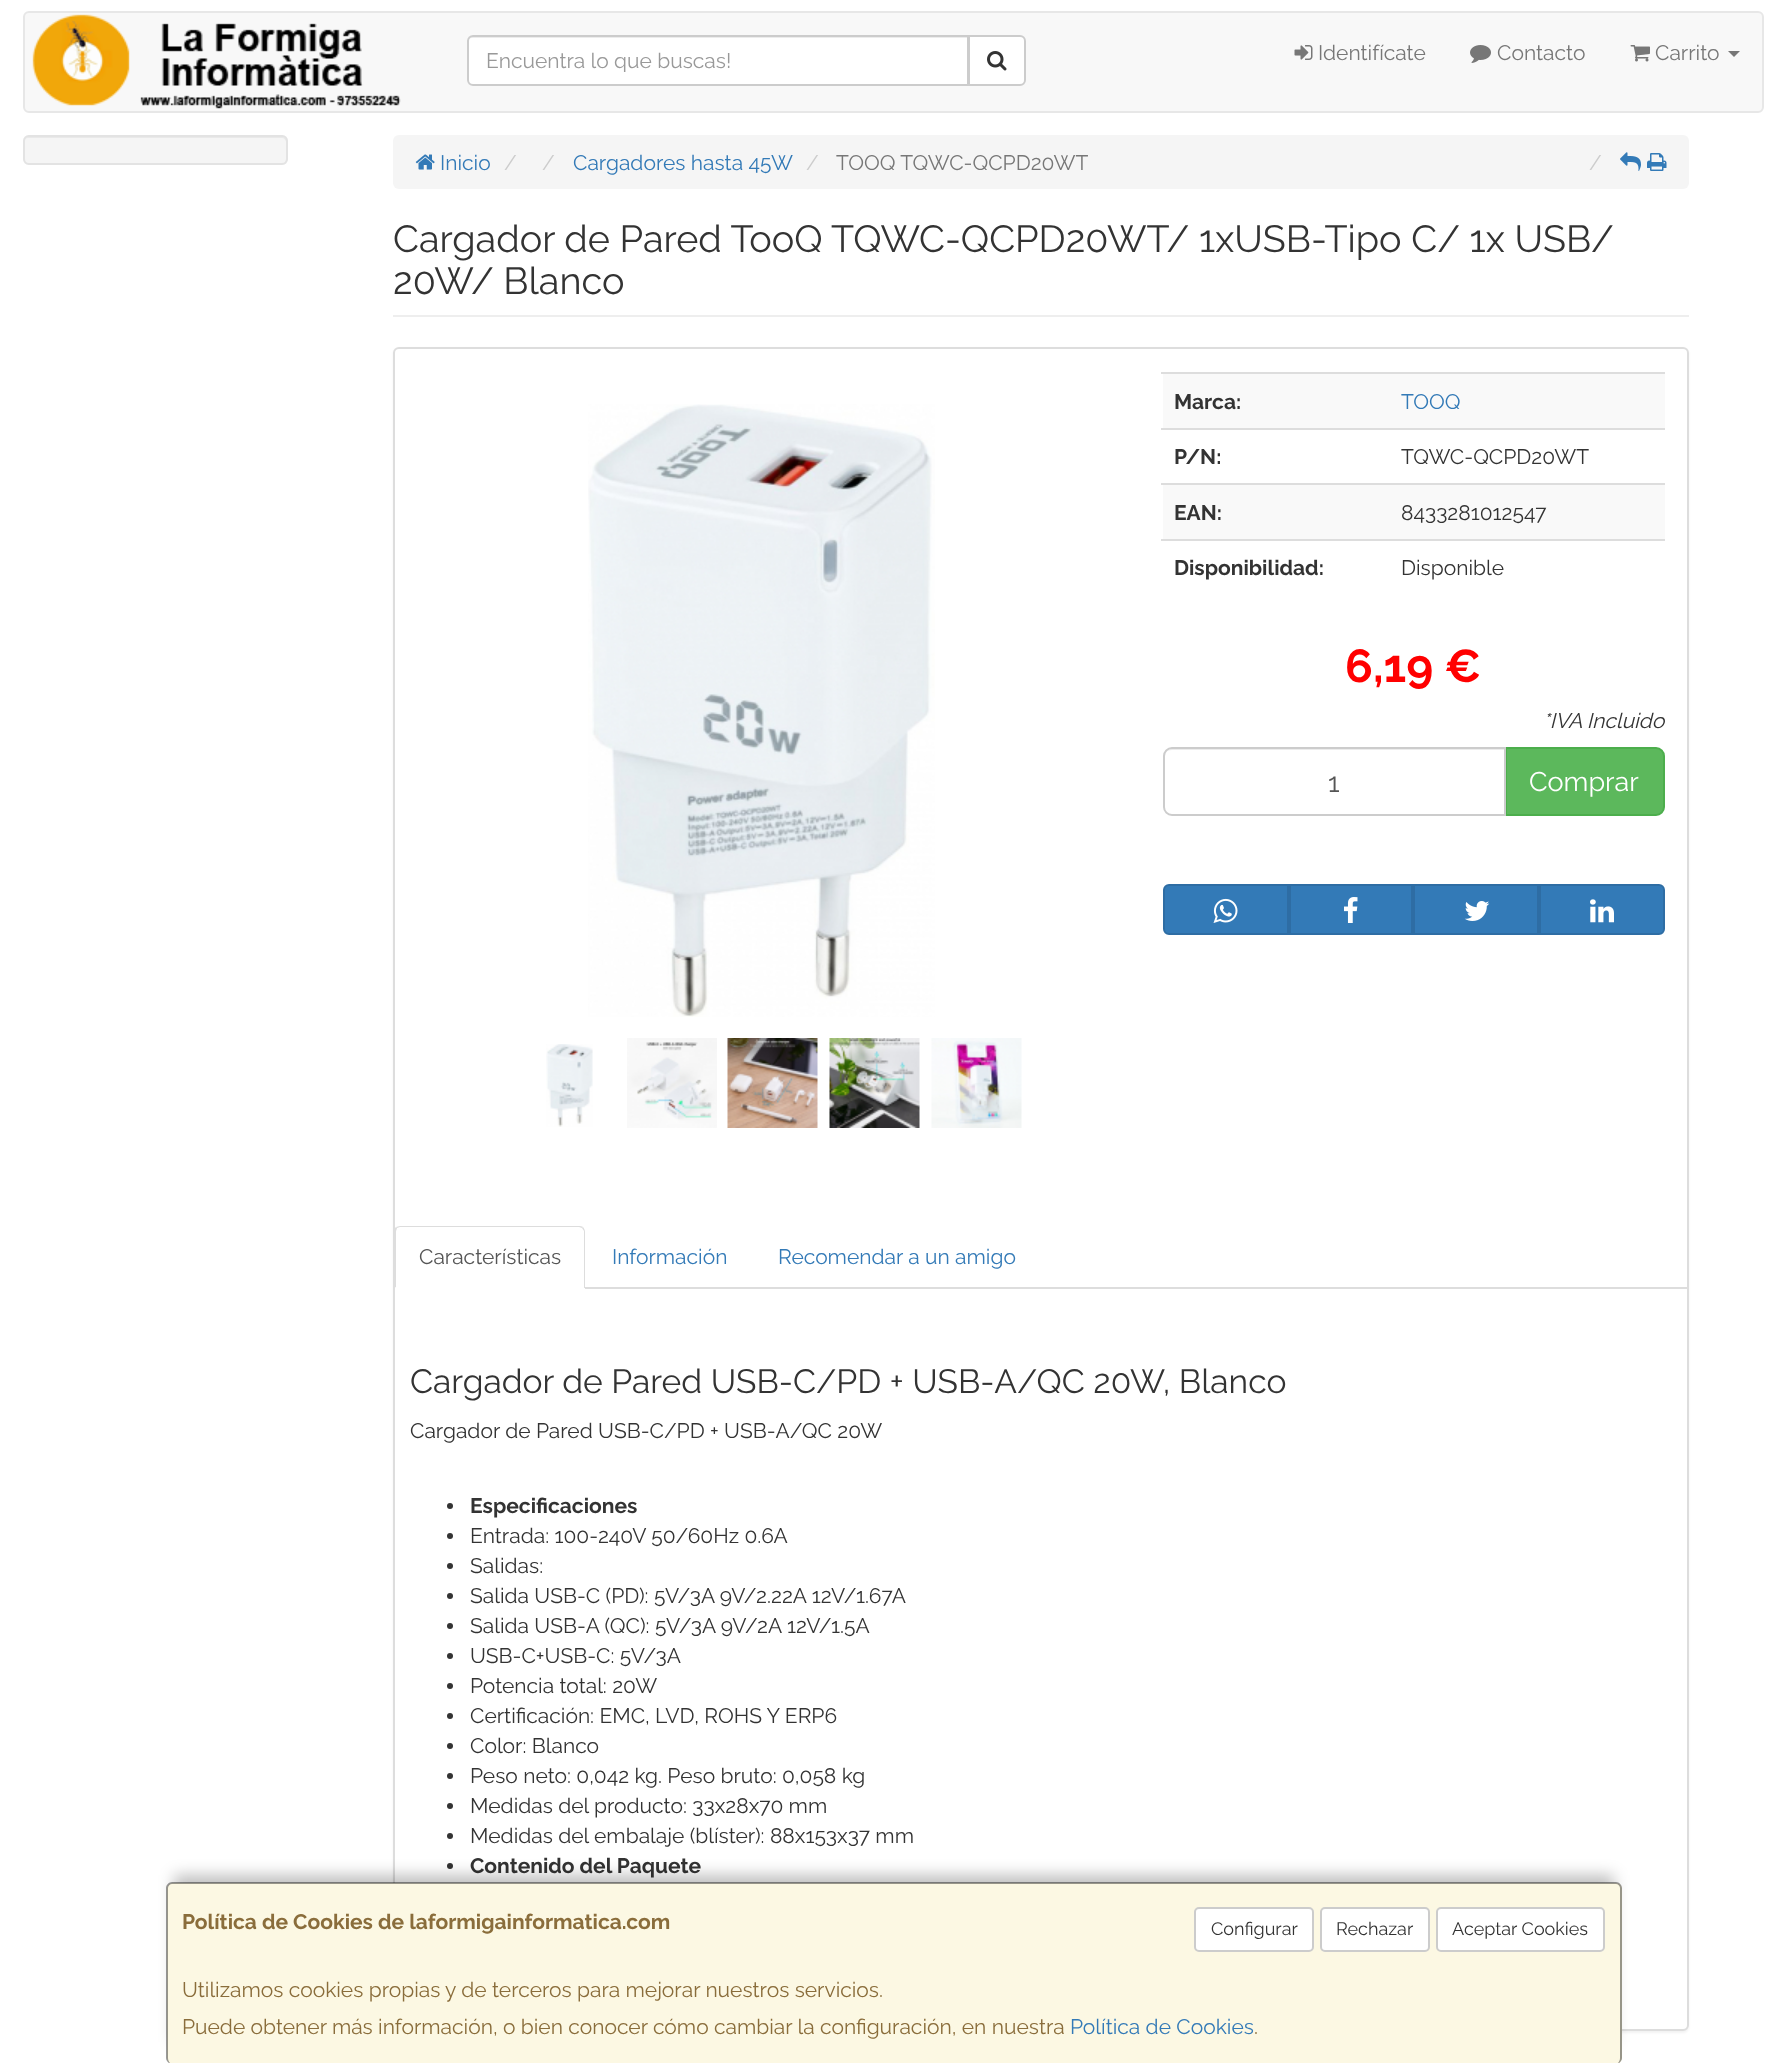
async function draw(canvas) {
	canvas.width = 1786;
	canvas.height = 2063;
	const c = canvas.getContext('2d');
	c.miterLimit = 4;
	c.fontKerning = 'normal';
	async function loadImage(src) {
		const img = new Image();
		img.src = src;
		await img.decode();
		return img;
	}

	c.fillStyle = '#fff';
	c.fillRect(0, 0, 1786, 2063);
	c.fillStyle = '#f8f8f8';
	c.beginPath();
	c.roundRect(24, 12, 1739, 100, 5);
	c.fill();
	c.strokeStyle = '#e7e7e7';
	c.lineWidth = 2;
	c.stroke();
	c.drawImage(await loadImage('img1.png'), 32, 14, 369, 95);
	c.fillStyle = '#fff';
	c.beginPath();
	c.roundRect(969, 36, 56, 49, [0, 5, 5, 0]);
	c.fill();
	c.strokeStyle = '#ccc';
	c.stroke();
	c.beginPath();
	c.roundRect(467, 35, 502, 51, [6, 0, 0, 6]);
	c.fill();
	c.fillStyle = '#ececec';
	c.beginPath();
	c.moveTo(472, 38);
	c.lineTo(968, 38);
	c.lineTo(968, 36);
	c.lineTo(473, 36);
	c.bezierCurveTo(470, 36, 468, 38, 468, 41);
	c.lineTo(468, 42);
	c.bezierCurveTo(468, 40, 470, 38, 472, 38);
	c.closePath();
	c.fill();
	c.beginPath();
	c.roundRect(468, 36, 500, 49, [5, 0, 0, 5]);
	c.stroke();
	c.save();
	c.beginPath();
	c.rect(486, 48, 464, 24);
	c.clip();
	c.font = '21px Raleway';
	c.fillStyle = '#999';
	c.fillText('Encuentra lo que buscas!', 486, 68);
	c.restore();
	c.drawImage(await loadImage('img2.png'), 987, 51, 20, 20);
	c.drawImage(await loadImage('img3.png'), 1294, 45, 19, 15);
	c.font = '21px Raleway';
	c.fillStyle = '#777';
	c.fillText('Identifícate', 1318, 60);
	c.drawImage(await loadImage('img4.png'), 1470, 45, 21, 18);
	c.fillText('Contacto', 1497, 60);
	c.drawImage(await loadImage('img5.png'), 1630, 45, 20, 17);
	c.fillText('Carrito', 1655, 60);
	c.beginPath();
	c.moveTo(1728, 51);
	c.lineTo(1740, 51);
	c.lineTo(1734, 57);
	c.closePath();
	c.fill();
	c.fillStyle = '#f5f5f5';
	c.beginPath();
	c.roundRect(23, 135, 265, 30, 6);
	c.fill();
	c.fillStyle = '#e9e9e9';
	c.beginPath();
	c.moveTo(28, 138);
	c.lineTo(282, 138);
	c.bezierCurveTo(284, 138, 286, 140, 286, 142);
	c.lineTo(286, 160);
	c.lineTo(285, 163);
	c.bezierCurveTo(286, 162, 287, 160, 287, 159);
	c.lineTo(287, 142);
	c.bezierCurveTo(287, 139, 285, 137, 282, 137);
	c.lineTo(29, 137);
	c.bezierCurveTo(26, 137, 24, 139, 24, 142);
	c.bezierCurveTo(24, 140, 26, 138, 28, 138);
	c.closePath();
	c.fill();
	c.beginPath();
	c.roundRect(24, 136, 263, 28, 5);
	c.strokeStyle = '#e3e3e3';
	c.stroke();
	c.fillStyle = '#f5f5f5';
	c.beginPath();
	c.roundRect(393, 135, 1296, 54, 6);
	c.fill();
	c.drawImage(await loadImage('img6.png'), 415, 154, 20, 16);
	c.fillStyle = '#337ab7';
	c.fillText('Inicio', 440, 170);
	c.fillStyle = '#ccc';
	c.fillText('/', 504, 170);
	c.fillText('/', 542, 170);
	c.fillStyle = '#337ab7';
	c.fillText('Cargadores hasta 45W', 573, 170);
	c.fillStyle = '#ccc';
	c.fillText('/', 806, 170);
	c.fillStyle = '#777';
	c.fillText('TOOQ TQWC-QCPD20WT', 836, 170);
	c.fillStyle = '#ccc';
	c.fillText('/', 1589, 170);
	c.drawImage(await loadImage('img7.png'), 1620, 152, 21, 19);
	c.drawImage(await loadImage('img8.png'), 1647, 153, 20, 18);
	c.fillStyle = '#eee';
	c.fillRect(393, 315, 1296, 2);
	c.font = '37.8px Raleway';
	c.fillStyle = '#333';
	c.fillText('Cargador de Pared TooQ TQWC-QCPD20WT/ 1xUSB-Tipo C/ 1x USB/', 393, 252);
	c.fillText('20W/ Blanco', 393, 294);
	c.fillStyle = '#0000000d';
	c.filter = 'blur(1px)';
	c.beginPath();
	c.roundRect(393, 348, 1296, 1685, 6);
	c.fill();
	c.filter = 'none';
	c.fillStyle = '#fff';
	c.beginPath();
	c.roundRect(394, 348, 1294, 1682, 5);
	c.fill();
	c.strokeStyle = '#ddd';
	c.stroke();
	c.drawImage(await loadImage('img9.png'), 588, 404, 347, 613);
	c.drawImage(await loadImage('img10.png'), 546, 1044, 47, 83);
	c.drawImage(await loadImage('img11.png'), 627, 1038, 90, 90);
	c.drawImage(await loadImage('img12.png'), 727, 1038, 91, 90);
	c.drawImage(await loadImage('img13.png'), 829, 1038, 91, 90);
	c.drawImage(await loadImage('img14.png'), 931, 1038, 91, 90);
	c.fillStyle = '#f9f9f9';
	c.fillRect(1163, 374, 502, 54);
	c.font = 'bold 21px Raleway';
	c.fillStyle = '#333';
	c.fillText('Marca:', 1174, 409);
	c.fillStyle = '#ddd';
	c.fillRect(1161, 372, 504, 2);
	c.font = '21px Raleway';
	c.fillStyle = '#337ab7';
	c.fillText('TOOQ', 1401, 409);
	c.font = 'bold 21px Raleway';
	c.fillStyle = '#333';
	c.fillText('P/N:', 1174, 464);
	c.fillStyle = '#ddd';
	c.fillRect(1161, 428, 504, 2);
	c.font = '21px Raleway';
	c.fillStyle = '#333';
	c.fillText('TQWC-QCPD20WT', 1401, 464);
	c.fillStyle = '#f9f9f9';
	c.fillRect(1163, 485, 502, 54);
	c.font = 'bold 21px Raleway';
	c.fillStyle = '#333';
	c.fillText('EAN:', 1174, 520);
	c.fillStyle = '#ddd';
	c.fillRect(1161, 483, 504, 2);
	c.font = '21px Raleway';
	c.fillStyle = '#333';
	c.fillText('8433281012547', 1401, 520);
	c.font = 'bold 21px Raleway';
	c.fillText('Disponibilidad:', 1174, 575);
	c.fillStyle = '#ddd';
	c.fillRect(1161, 539, 504, 2);
	c.font = '21px Raleway';
	c.fillStyle = '#333';
	c.fillText('Disponible', 1401, 575);
	c.font = 'bold 46px Raleway';
	c.fillStyle = '#f00';
	c.fillText('6,19 €', 1345, 682);
	c.font = 'italic 21px Raleway';
	c.fillStyle = '#333';
	c.fillText('*IVA Incluido', 1543, 728);
	c.fillStyle = '#5cb85c';
	c.beginPath();
	c.roundRect(1506, 748, 158, 67, [0, 8, 8, 0]);
	c.fill();
	c.strokeStyle = '#4cae4c';
	c.stroke();
	c.fillStyle = '#fff';
	c.beginPath();
	c.roundRect(1163, 747, 343, 69, [9, 0, 0, 9]);
	c.fill();
	c.fillStyle = '#ececec';
	c.beginPath();
	c.moveTo(1172, 750);
	c.lineTo(1504, 750);
	c.lineTo(1504, 815);
	c.lineTo(1505, 815);
	c.lineTo(1505, 749);
	c.lineTo(1172, 749);
	c.bezierCurveTo(1168, 749, 1164, 753, 1164, 757);
	c.lineTo(1164, 758);
	c.bezierCurveTo(1164, 753, 1167, 750, 1172, 750);
	c.closePath();
	c.fill();
	c.beginPath();
	c.roundRect(1164, 748, 341, 67, [8, 0, 0, 8]);
	c.strokeStyle = '#ccc';
	c.stroke();
	c.font = '27px Raleway';
	c.fillStyle = '#555';
	c.fillText('1', 1328, 792);
	c.fillStyle = '#fff';
	c.fillText('Comprar', 1529, 791);
	c.fillStyle = '#337ab7';
	c.beginPath();
	c.roundRect(1164, 885, 124, 49, [5, 0, 0, 5]);
	c.fill();
	c.strokeStyle = '#2e6da4';
	c.stroke();
	c.drawImage(await loadImage('img15.png'), 1213, 898, 25, 25);
	c.beginPath();
	c.rect(1290, 885, 122, 49);
	c.fill();
	c.stroke();
	c.drawImage(await loadImage('img16.png'), 1344, 897, 14, 26);
	c.beginPath();
	c.rect(1414, 885, 124, 49);
	c.fill();
	c.stroke();
	c.drawImage(await loadImage('img17.png'), 1464, 901, 26, 20);
	c.beginPath();
	c.roundRect(1540, 885, 124, 49, [0, 5, 5, 0]);
	c.fill();
	c.stroke();
	c.drawImage(await loadImage('img18.png'), 1590, 899, 24, 24);
	c.fillStyle = '#ddd';
	c.fillRect(585, 1287, 1103, 2);
	c.beginPath();
	c.moveTo(400, 1226);
	c.lineTo(396, 1227);
	c.lineTo(397, 1228);
	c.lineTo(400, 1227);
	c.lineTo(579, 1227);
	c.lineTo(582, 1228);
	c.lineTo(583, 1227);
	c.bezierCurveTo(582, 1226, 580, 1226, 579, 1226);
	c.closePath();
	c.fill();
	c.beginPath();
	c.moveTo(583, 1227);
	c.bezierCurveTo(584, 1228, 585, 1230, 585, 1232);
	c.lineTo(585, 1288);
	c.lineTo(584, 1288);
	c.lineTo(584, 1287);
	c.lineTo(584, 1231);
	c.lineTo(582, 1228);
	c.closePath();
	c.fill();
	c.beginPath();
	c.moveTo(394, 1229);
	c.lineTo(396, 1227);
	c.lineTo(397, 1228);
	c.bezierCurveTo(397, 1229, 396, 1230, 396, 1232);
	c.lineTo(396, 1287);
	c.lineTo(394, 1288);
	c.closePath();
	c.fill();
	c.font = '21px Raleway';
	c.fillStyle = '#555';
	c.fillText('Características', 419, 1264);
	c.fillStyle = '#337ab7';
	c.fillText('Información', 612, 1264);
	c.fillText('Recomendar a un amigo', 778, 1264);
	c.font = '33.6px Raleway';
	c.fillStyle = '#333';
	c.fillText('Cargador de Pared USB-C/PD + USB-A/QC 20W, Blanco', 410, 1393);
	c.font = '21px Raleway';
	c.fillText('Cargador de Pared USB-C/PD + USB-A/QC 20W', 410, 1438);
	c.beginPath();
	c.arc(450, 1506, 3, 0, 2 * Math.PI);
	c.fill();
	c.font = 'bold 21px Raleway';
	c.fillText('Especificaciones', 470, 1513);
	c.beginPath();
	c.arc(450, 1536, 3, 0, 2 * Math.PI);
	c.fill();
	c.font = '21px Raleway';
	c.fillText('Entrada: 100-240V 50/60Hz 0.6A', 470, 1543);
	c.beginPath();
	c.arc(450, 1566, 3, 0, 2 * Math.PI);
	c.fill();
	c.fillText('Salidas:', 470, 1573);
	c.beginPath();
	c.arc(450, 1596, 3, 0, 2 * Math.PI);
	c.fill();
	c.fillText('Salida USB-C (PD): 5V/3A 9V/2.22A 12V/1.67A', 470, 1603);
	c.beginPath();
	c.arc(450, 1626, 3, 0, 2 * Math.PI);
	c.fill();
	c.fillText('Salida USB-A (QC): 5V/3A 9V/2A 12V/1.5A', 470, 1633);
	c.beginPath();
	c.arc(450, 1656, 3, 0, 2 * Math.PI);
	c.fill();
	c.fillText('USB-C+USB-C: 5V/3A', 470, 1663);
	c.beginPath();
	c.arc(450, 1686, 3, 0, 2 * Math.PI);
	c.fill();
	c.fillText('Potencia total: 20W', 470, 1693);
	c.beginPath();
	c.arc(450, 1716, 3, 0, 2 * Math.PI);
	c.fill();
	c.fillText('Certificación: EMC, LVD, ROHS Y ERP6', 470, 1723);
	c.beginPath();
	c.arc(450, 1746, 3, 0, 2 * Math.PI);
	c.fill();
	c.fillText('Color: Blanco', 470, 1753);
	c.beginPath();
	c.arc(450, 1776, 3, 0, 2 * Math.PI);
	c.fill();
	c.fillText('Peso neto: 0,042 kg. Peso bruto: 0,058 kg', 470, 1783);
	c.beginPath();
	c.arc(450, 1806, 3, 0, 2 * Math.PI);
	c.fill();
	c.fillText('Medidas del producto: 33x28x70 mm', 470, 1813);
	c.beginPath();
	c.arc(450, 1836, 3, 0, 2 * Math.PI);
	c.fill();
	c.fillText('Medidas del embalaje (blíster): 88x153x37 mm', 470, 1843);
	c.beginPath();
	c.arc(450, 1866, 3, 0, 2 * Math.PI);
	c.fill();
	c.font = 'bold 21px Raleway';
	c.fillText('Contenido del Paquete', 470, 1873);
	c.fillStyle = '#00000040';
	c.filter = 'blur(7.5px)';
	c.beginPath();
	c.rect(174, 1875, 1440, 167);
	c.fill();
	c.filter = 'none';
	c.fillStyle = '#fcf8e3';
	c.beginPath();
	c.roundRect(167, 1883, 1455, 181, 6);
	c.fill();
	c.fillStyle = '#00000066';
	c.beginPath();
	c.moveTo(172, 1882);
	c.lineTo(1616, 1882);
	c.bezierCurveTo(1619, 1882, 1622, 1885, 1622, 1888);
	c.lineTo(1622, 2058);
	c.bezierCurveTo(1622, 2061, 1619, 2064, 1616, 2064);
	c.lineTo(172, 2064);
	c.bezierCurveTo(169, 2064, 166, 2061, 166, 2058);
	c.lineTo(166, 1888);
	c.bezierCurveTo(166, 1885, 169, 1882, 172, 1882);
	c.closePath();
	c.moveTo(172, 1884);
	c.lineTo(1616, 1884);
	c.bezierCurveTo(1618, 1884, 1620, 1886, 1620, 1888);
	c.lineTo(1620, 2058);
	c.bezierCurveTo(1620, 2061, 1618, 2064, 1616, 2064);
	c.lineTo(172, 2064);
	c.bezierCurveTo(170, 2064, 168, 2061, 168, 2058);
	c.lineTo(168, 1888);
	c.bezierCurveTo(168, 1886, 170, 1884, 172, 1884);
	c.closePath();
	c.fill('evenodd');
	c.fillStyle = '#8a6d3b';
	c.fillText('Política de Cookies de laformigainformatica.com', 182, 1929);
	c.fillStyle = '#fff';
	c.beginPath();
	c.roundRect(1195, 1908, 118, 43, 4);
	c.fill();
	c.strokeStyle = '#ccc';
	c.stroke();
	c.font = '18px Raleway';
	c.fillStyle = '#333';
	c.fillText('Configurar', 1211, 1935);
	c.fillStyle = '#fff';
	c.beginPath();
	c.roundRect(1321, 1908, 108, 43, 4);
	c.fill();
	c.stroke();
	c.fillStyle = '#333';
	c.fillText('Rechazar', 1336, 1935);
	c.fillStyle = '#fff';
	c.beginPath();
	c.roundRect(1437, 1908, 167, 43, 4);
	c.fill();
	c.stroke();
	c.fillStyle = '#333';
	c.fillText('Aceptar Cookies', 1452, 1935);
	c.font = '21px Raleway';
	c.fillStyle = '#8a6d3b';
	c.fillText('Utilizamos cookies propias y de terceros para mejorar nuestros servicios.', 182, 1997);
	c.fillText('Puede obtener más información, o bien conocer cómo cambiar la configuración, en nuestra', 182, 2034);
	c.fillStyle = '#337ab7';
	c.fillText('Política de Cookies', 1070, 2034);
	c.fillStyle = '#8a6d3b';
	c.fillText('.', 1254, 2034);
}

draw(document.querySelector('canvas'));
